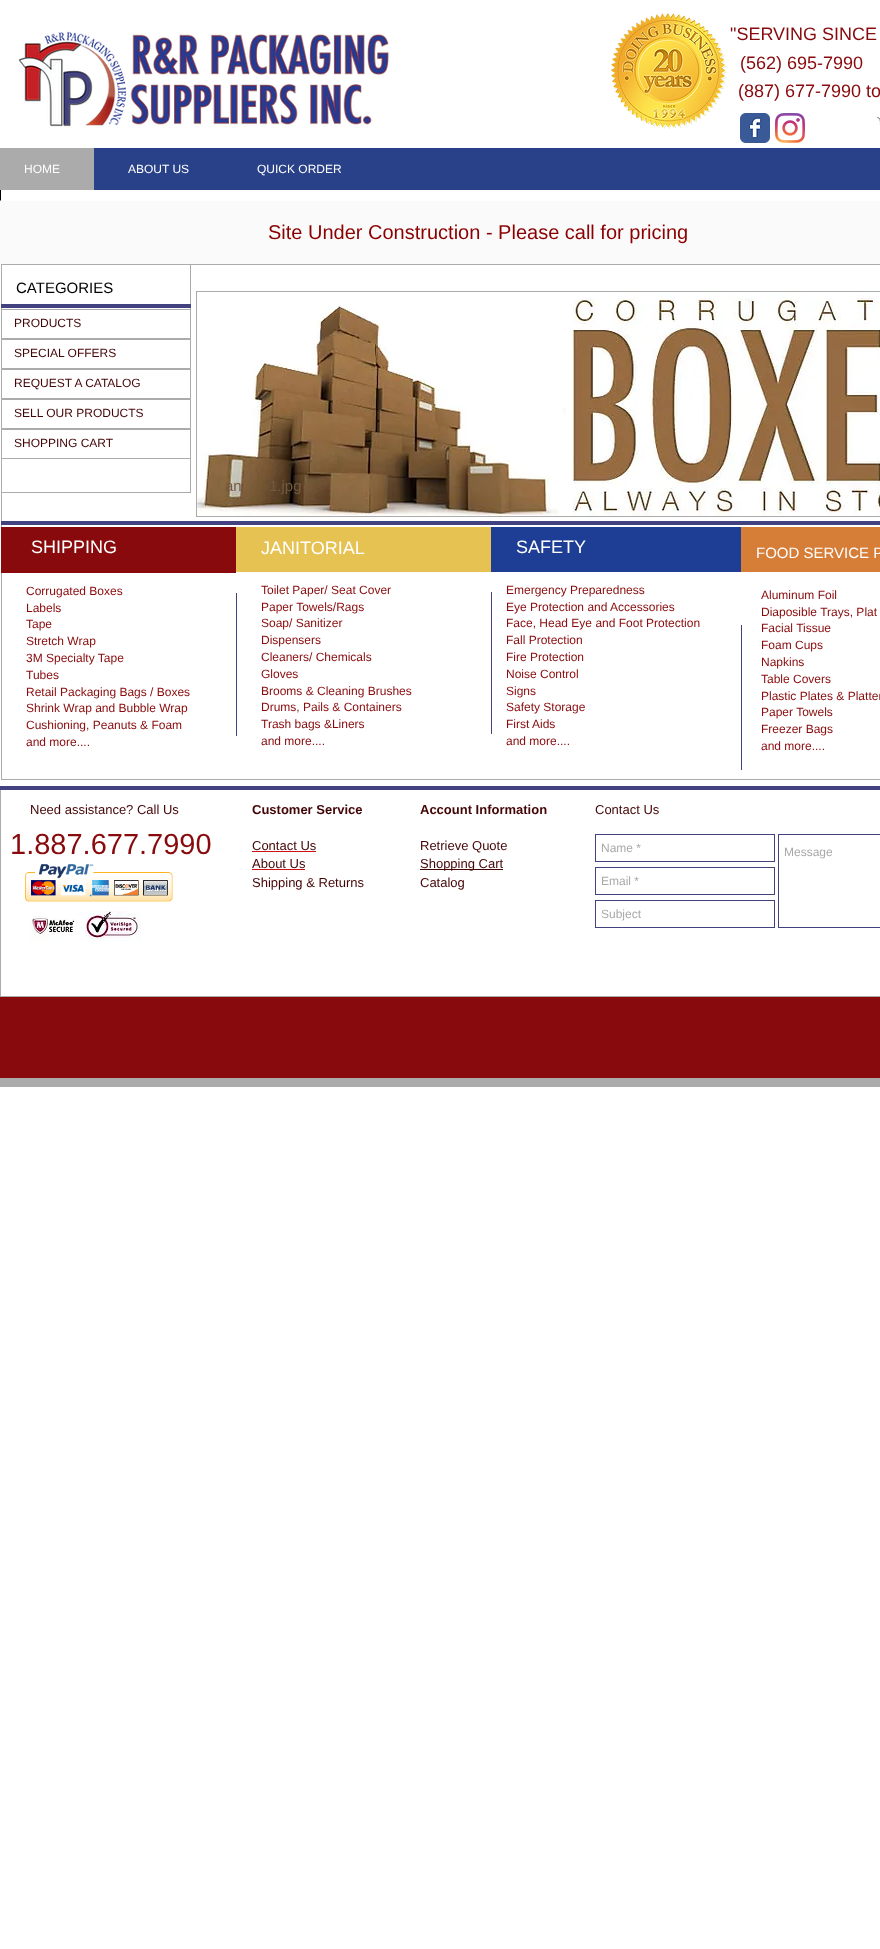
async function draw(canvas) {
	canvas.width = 880;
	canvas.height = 1949;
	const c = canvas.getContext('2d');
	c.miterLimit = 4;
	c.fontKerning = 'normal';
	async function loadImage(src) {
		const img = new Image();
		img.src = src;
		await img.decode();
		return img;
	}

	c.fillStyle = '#fff';
	c.fillRect(0, 0, 880, 1949);
	c.drawImage(await loadImage('img1.png'), 18, 31, 371, 96);
	c.drawImage(await loadImage('img2.png'), 611, 13, 116, 116);
	c.font = '18px Liberation Sans';
	c.fillStyle = '#880a0c';
	for (const [text, x, y] of [
		['"SERVING SINCE', 730, 40],
		['(562) 695-7990', 740, 69],
		['(887) 677-7990 to', 738, 97],
	]) {
		c.fillText(text, x, y);
	}
	c.drawImage(await loadImage('img3.png'), 740, 113, 30, 30);
	c.drawImage(await loadImage('img4.png'), 775, 113, 30, 30);
	c.drawImage(await loadImage('img5.png'), 877, 117, 3, 8);
	c.fillStyle = '#294188';
	c.fillRect(94, 148, 786, 42);
	c.fillStyle = '#ababab';
	c.fillRect(0, 148, 94, 42);
	c.font = '12px Liberation Sans';
	c.fillStyle = '#fff';
	for (const [text, x, y] of [
		['HOME', 24, 173],
		['ABOUT US', 128, 173],
		['QUICK ORDER', 257, 173],
	]) {
		c.fillText(text, x, y);
	}
	c.fillStyle = '#000';
	c.beginPath();
	c.moveTo(-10, 190);
	c.lineTo(1, 190);
	c.lineTo(1, 201);
	c.closePath();
	c.fill();
	c.fillStyle = '#fafafa';
	c.fillRect(0, 201, 880, 63);
	c.font = '20px Liberation Sans';
	c.fillStyle = '#8b0000';
	c.fillText('Site Under Construction - Please call for pricing', 268, 239);
	c.strokeStyle = '#ababab';
	c.strokeRect(1.5, 264.5, 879, 515);
	c.strokeRect(1.5, 264.5, 189, 228);
	c.font = '15px Liberation Sans';
	c.fillStyle = '#000';
	c.fillText('CATEGORIES', 16, 293);
	c.fillStyle = '#434280';
	c.fillRect(1, 304, 190, 4);
	c.strokeRect(1.5, 309.5, 189, 29);
	c.font = '12px Liberation Sans';
	c.fillStyle = '#440506';
	c.fillText('PRODUCTS', 14, 327);
	c.strokeRect(1.5, 339.5, 189, 29);
	c.fillText('SPECIAL OFFERS', 14, 357);
	c.strokeRect(1.5, 369.5, 189, 29);
	c.fillText('REQUEST A CATALOG', 14, 387);
	c.strokeRect(1.5, 399.5, 189, 29);
	c.fillText('SELL OUR PRODUCTS', 14, 417);
	c.strokeRect(1.5, 429.5, 189, 29);
	c.fillText('SHOPPING CART', 14, 447);
	c.fillStyle = '#ababab';
	c.fillRect(196, 291, 684, 226);
	c.drawImage(await loadImage('img6.png'), 197, 292, 683, 224);
	c.font = '15px Liberation Sans';
	c.fillStyle = '#715a40';
	c.fillText('an', 225, 491);
	c.fillText('1.jpg', 269, 491);
	c.fillStyle = '#434280';
	c.fillRect(1, 521, 879, 4);
	c.fillStyle = '#880a0c';
	c.fillRect(1, 527, 235, 46);
	c.font = '18px Liberation Sans';
	c.fillStyle = '#fff';
	c.fillText('SHIPPING', 31, 553);
	c.fillStyle = '#e5c252';
	c.fillRect(236, 527, 255, 45);
	c.fillStyle = '#fff';
	c.fillText('JANITORIAL', 261, 554);
	c.fillStyle = '#1e3d95';
	c.fillRect(491, 527, 250, 45);
	c.fillStyle = '#fff';
	c.fillText('SAFETY', 516, 553);
	c.fillStyle = '#d67d37';
	c.fillRect(741, 527, 139, 45);
	c.font = '15px Liberation Sans';
	c.fillStyle = '#fff';
	c.fillText('FOOD SERVICE P', 756, 558);
	c.font = '12px Liberation Sans';
	c.fillStyle = '#880a0c';
	for (const [text, x, y] of [
		['Corrugated Boxes', 26, 595],
		['Labels', 26, 612],
		['Tape', 26, 628],
		['Stretch Wrap', 26, 645],
		['3M Specialty Tape', 26, 662],
		['Tubes', 26, 679],
		['Retail Packaging Bags / Boxes', 26, 696],
		['Shrink Wrap and Bubble Wrap', 26, 712],
		['Cushioning, Peanuts & Foam', 26, 729],
		['and more....', 26, 746],
	]) {
		c.fillText(text, x, y);
	}
	c.fillStyle = '#434280';
	c.fillRect(236, 593, 1, 143);
	c.fillStyle = '#880a0c';
	for (const [text, x, y] of [
		['Toilet Paper/ Seat Cover', 261, 594],
		['Paper Towels/Rags', 261, 611],
		['Soap/ Sanitizer', 261, 627],
		['Dispensers', 261, 644],
		['Cleaners/ Chemicals', 261, 661],
		['Gloves', 261, 678],
		['Brooms & Cleaning Brushes', 261, 695],
		['Drums, Pails & Containers', 261, 711],
		['Trash bags &Liners', 261, 728],
		['and more....', 261, 745],
	]) {
		c.fillText(text, x, y);
	}
	c.fillStyle = '#434280';
	c.fillRect(491, 592, 1, 142);
	c.fillStyle = '#880a0c';
	for (const [text, x, y] of [
		['Emergency Preparedness', 506, 594],
		['Eye Protection and Accessories', 506, 611],
		['Face, Head Eye and Foot Protection', 506, 627],
		['Fall Protection', 506, 644],
		['Fire Protection', 506, 661],
		['Noise Control', 506, 678],
		['Signs', 506, 695],
		['Safety Storage', 506, 711],
		['First Aids', 506, 728],
		['and more....', 506, 745],
	]) {
		c.fillText(text, x, y);
	}
	c.fillStyle = '#434280';
	c.fillRect(741, 625, 1, 145);
	c.fillStyle = '#880a0c';
	for (const [text, x, y] of [
		['Aluminum Foil', 761, 599],
		['Diaposible Trays, Plat', 761, 616],
		['Facial Tissue', 761, 632],
		['Foam Cups', 761, 649],
		['Napkins', 761, 666],
		['Table Covers', 761, 683],
		['Plastic Plates & Platter', 761, 700],
		['Paper Towels', 761, 716],
		['Freezer Bags', 761, 733],
		['and more....', 761, 750],
	]) {
		c.fillText(text, x, y);
	}
	c.strokeRect(0.5, 786.5, 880, 210);
	c.fillStyle = '#434280';
	c.fillRect(0, 786, 880, 4);
	c.font = '13px Liberation Sans';
	c.fillStyle = '#440506';
	c.fillText('Need assistance? Call Us', 30, 814);
	c.font = 'bold 13px Liberation Sans';
	c.fillText('Customer Service', 252, 814);
	c.font = '13px Liberation Sans';
	c.fillText('Contact Us', 252, 850);
	c.fillStyle = '#cc1013';
	c.fillRect(252, 851, 64, 1);
	c.fillStyle = '#440506';
	c.fillText('About Us', 252, 868);
	c.fillStyle = '#cc1013';
	c.fillRect(252, 869, 53, 1);
	c.fillStyle = '#440506';
	c.fillText('Shipping & Returns', 252, 887);
	c.font = 'bold 13px Liberation Sans';
	c.fillText('Account Information', 420, 814);
	c.font = '13px Liberation Sans';
	c.fillText('Retrieve Quote', 420, 850);
	c.fillRect(420, 869, 83, 1);
	for (const [text, x, y] of [
		['Shopping Cart', 420, 868],
		['Catalog', 420, 887],
		['Contact Us', 595, 814],
	]) {
		c.fillText(text, x, y);
	}
	c.font = '29px Liberation Sans';
	c.fillStyle = '#880a0c';
	c.fillText('1.887.677.7990', 10, 854);
	c.strokeStyle = '#434280';
	c.strokeRect(595.5, 834.5, 179, 27);
	c.font = '12px Liberation Sans';
	c.fillStyle = '#a9a9a9';
	c.fillText('Name *', 601, 852);
	c.strokeRect(778.5, 834.5, 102, 93);
	c.fillText('Message', 784, 856);
	c.strokeRect(595.5, 867.5, 179, 27);
	c.fillText('Email *', 601, 885);
	c.strokeRect(595.5, 900.5, 179, 27);
	c.fillText('Subject', 601, 918);
	c.drawImage(await loadImage('img7.png'), 25, 864, 148, 38);
	c.drawImage(await loadImage('img8.png'), 29, 911, 112, 30);
	c.fillStyle = '#880a0c';
	c.fillRect(0, 997, 880, 81);
	c.fillStyle = '#ababab';
	c.fillRect(0, 1078, 880, 9);
}

draw(document.querySelector('canvas'));
